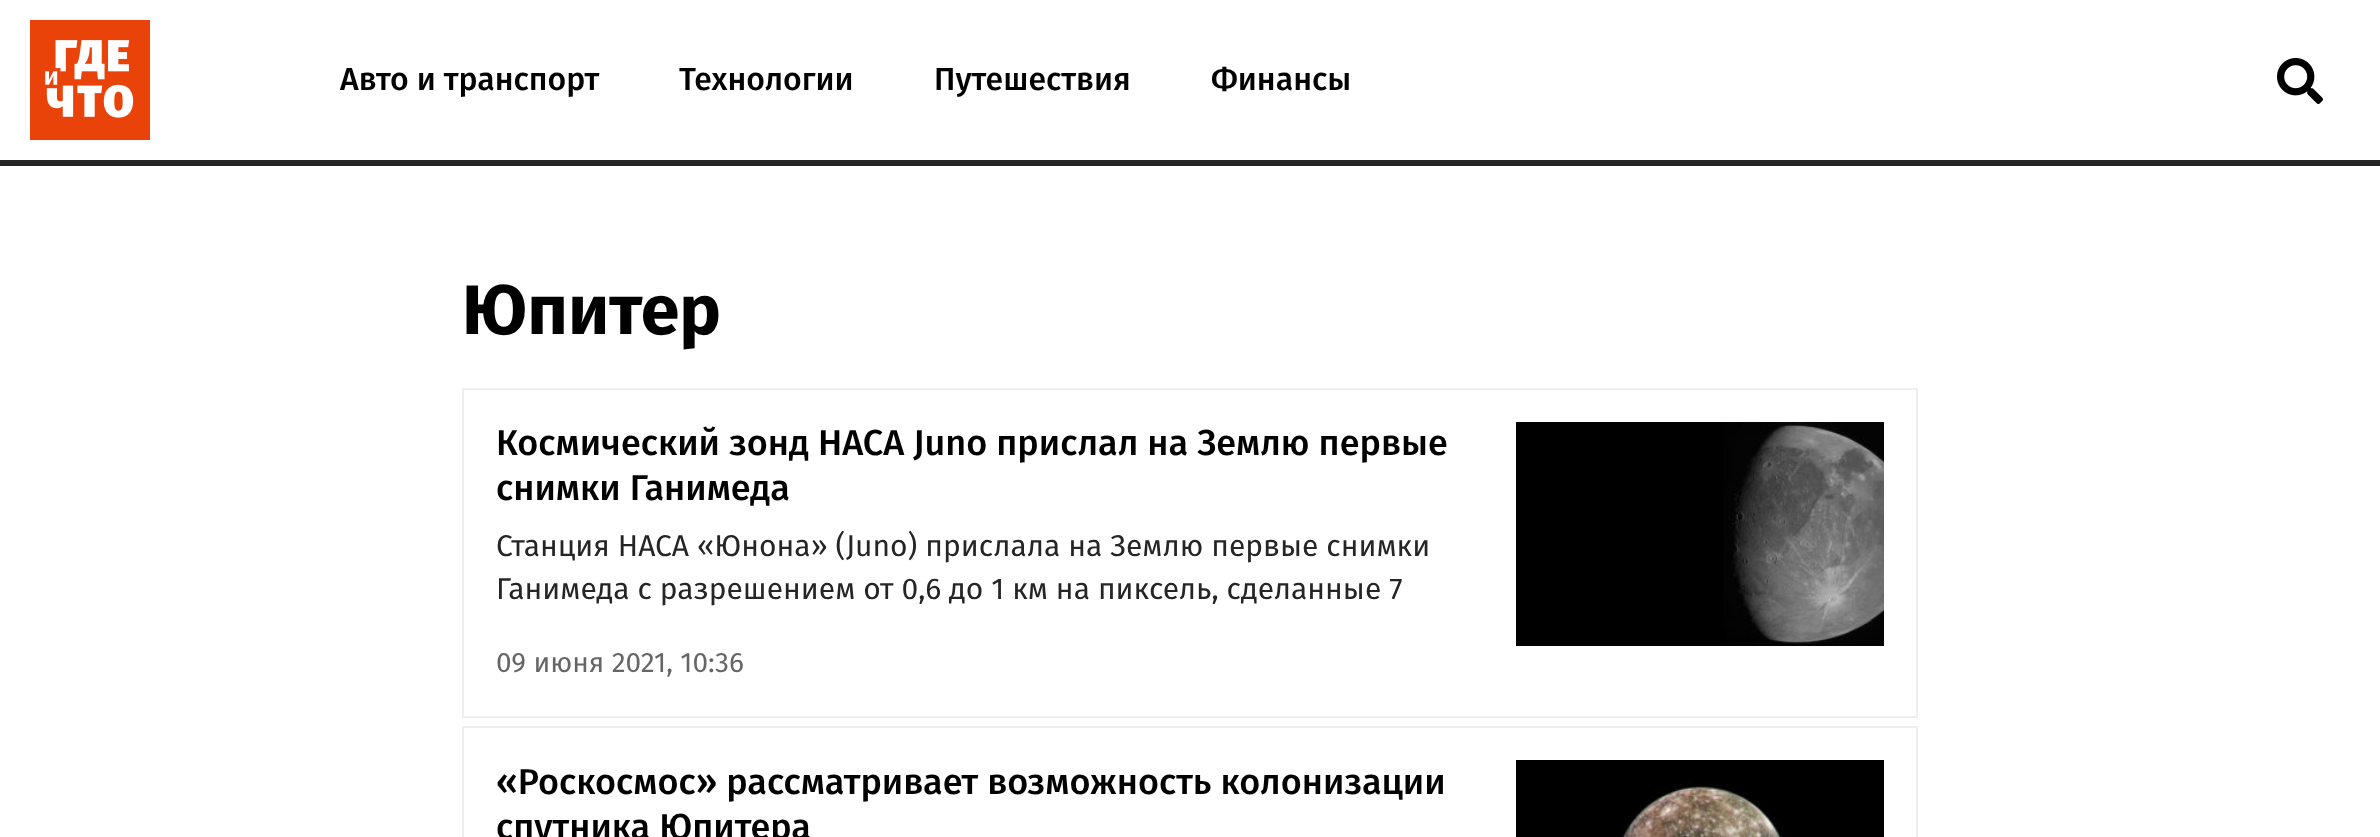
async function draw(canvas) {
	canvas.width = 2380;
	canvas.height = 837;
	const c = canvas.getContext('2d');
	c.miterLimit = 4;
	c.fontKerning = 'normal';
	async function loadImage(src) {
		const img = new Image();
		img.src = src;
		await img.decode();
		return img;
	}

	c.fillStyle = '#fff';
	c.fillRect(0, 0, 2380, 837);
	c.fillStyle = '#252525';
	c.fillRect(0, 160, 2380, 6);
	c.drawImage(await loadImage('img1.png'), 30, 20, 120, 120);
	c.font = '500 32px Fira Sans';
	c.fillStyle = '#000';
	for (const [text, x, y] of [
		['Авто и транспорт', 340, 90],
		['Технологии', 679, 90],
		['Путешествия', 934, 90],
		['Финансы', 1211, 90],
	]) {
		c.fillText(text, x, y);
	}
	c.drawImage(await loadImage('img2.png'), 2277, 58, 46, 46);
	c.font = 'bold 70px Fira Sans';
	c.fillText('Юпитер', 462, 334);
	c.strokeStyle = '#eee';
	c.lineWidth = 2;
	c.strokeRect(463, 389, 1454, 328);
	c.font = '500 36px Fira Sans';
	c.fillText('Космический зонд НАСА Juno прислал на Землю первые', 496, 455);
	c.fillText('снимки Ганимеда', 496, 500);
	c.font = '30px Fira Sans';
	c.fillStyle = '#252525';
	c.fillText('Станция НАСА «Юнона» (Juno) прислала на Землю первые снимки', 496, 556);
	c.fillText('Ганимеда с разрешением от 0,6 до 1 км на пиксель, сделанные 7', 496, 599);
	c.font = '28px Fira Sans';
	c.fillStyle = '#666';
	c.fillText('09 июня 2021, 10:36', 496, 672);
	c.drawImage(await loadImage('img3.png'), 1516, 422, 368, 224);
	c.strokeRect(463, 727, 1454, 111);
	c.font = '500 36px Fira Sans';
	c.fillStyle = '#000';
	c.fillText('«Роскосмос» рассматривает возможность колонизации', 496, 794);
	c.fillText('спутника Юпитера', 496, 839);
	c.drawImage(await loadImage('img4.png'), 1516, 760, 368, 77);
}

draw(document.querySelector('canvas'));
